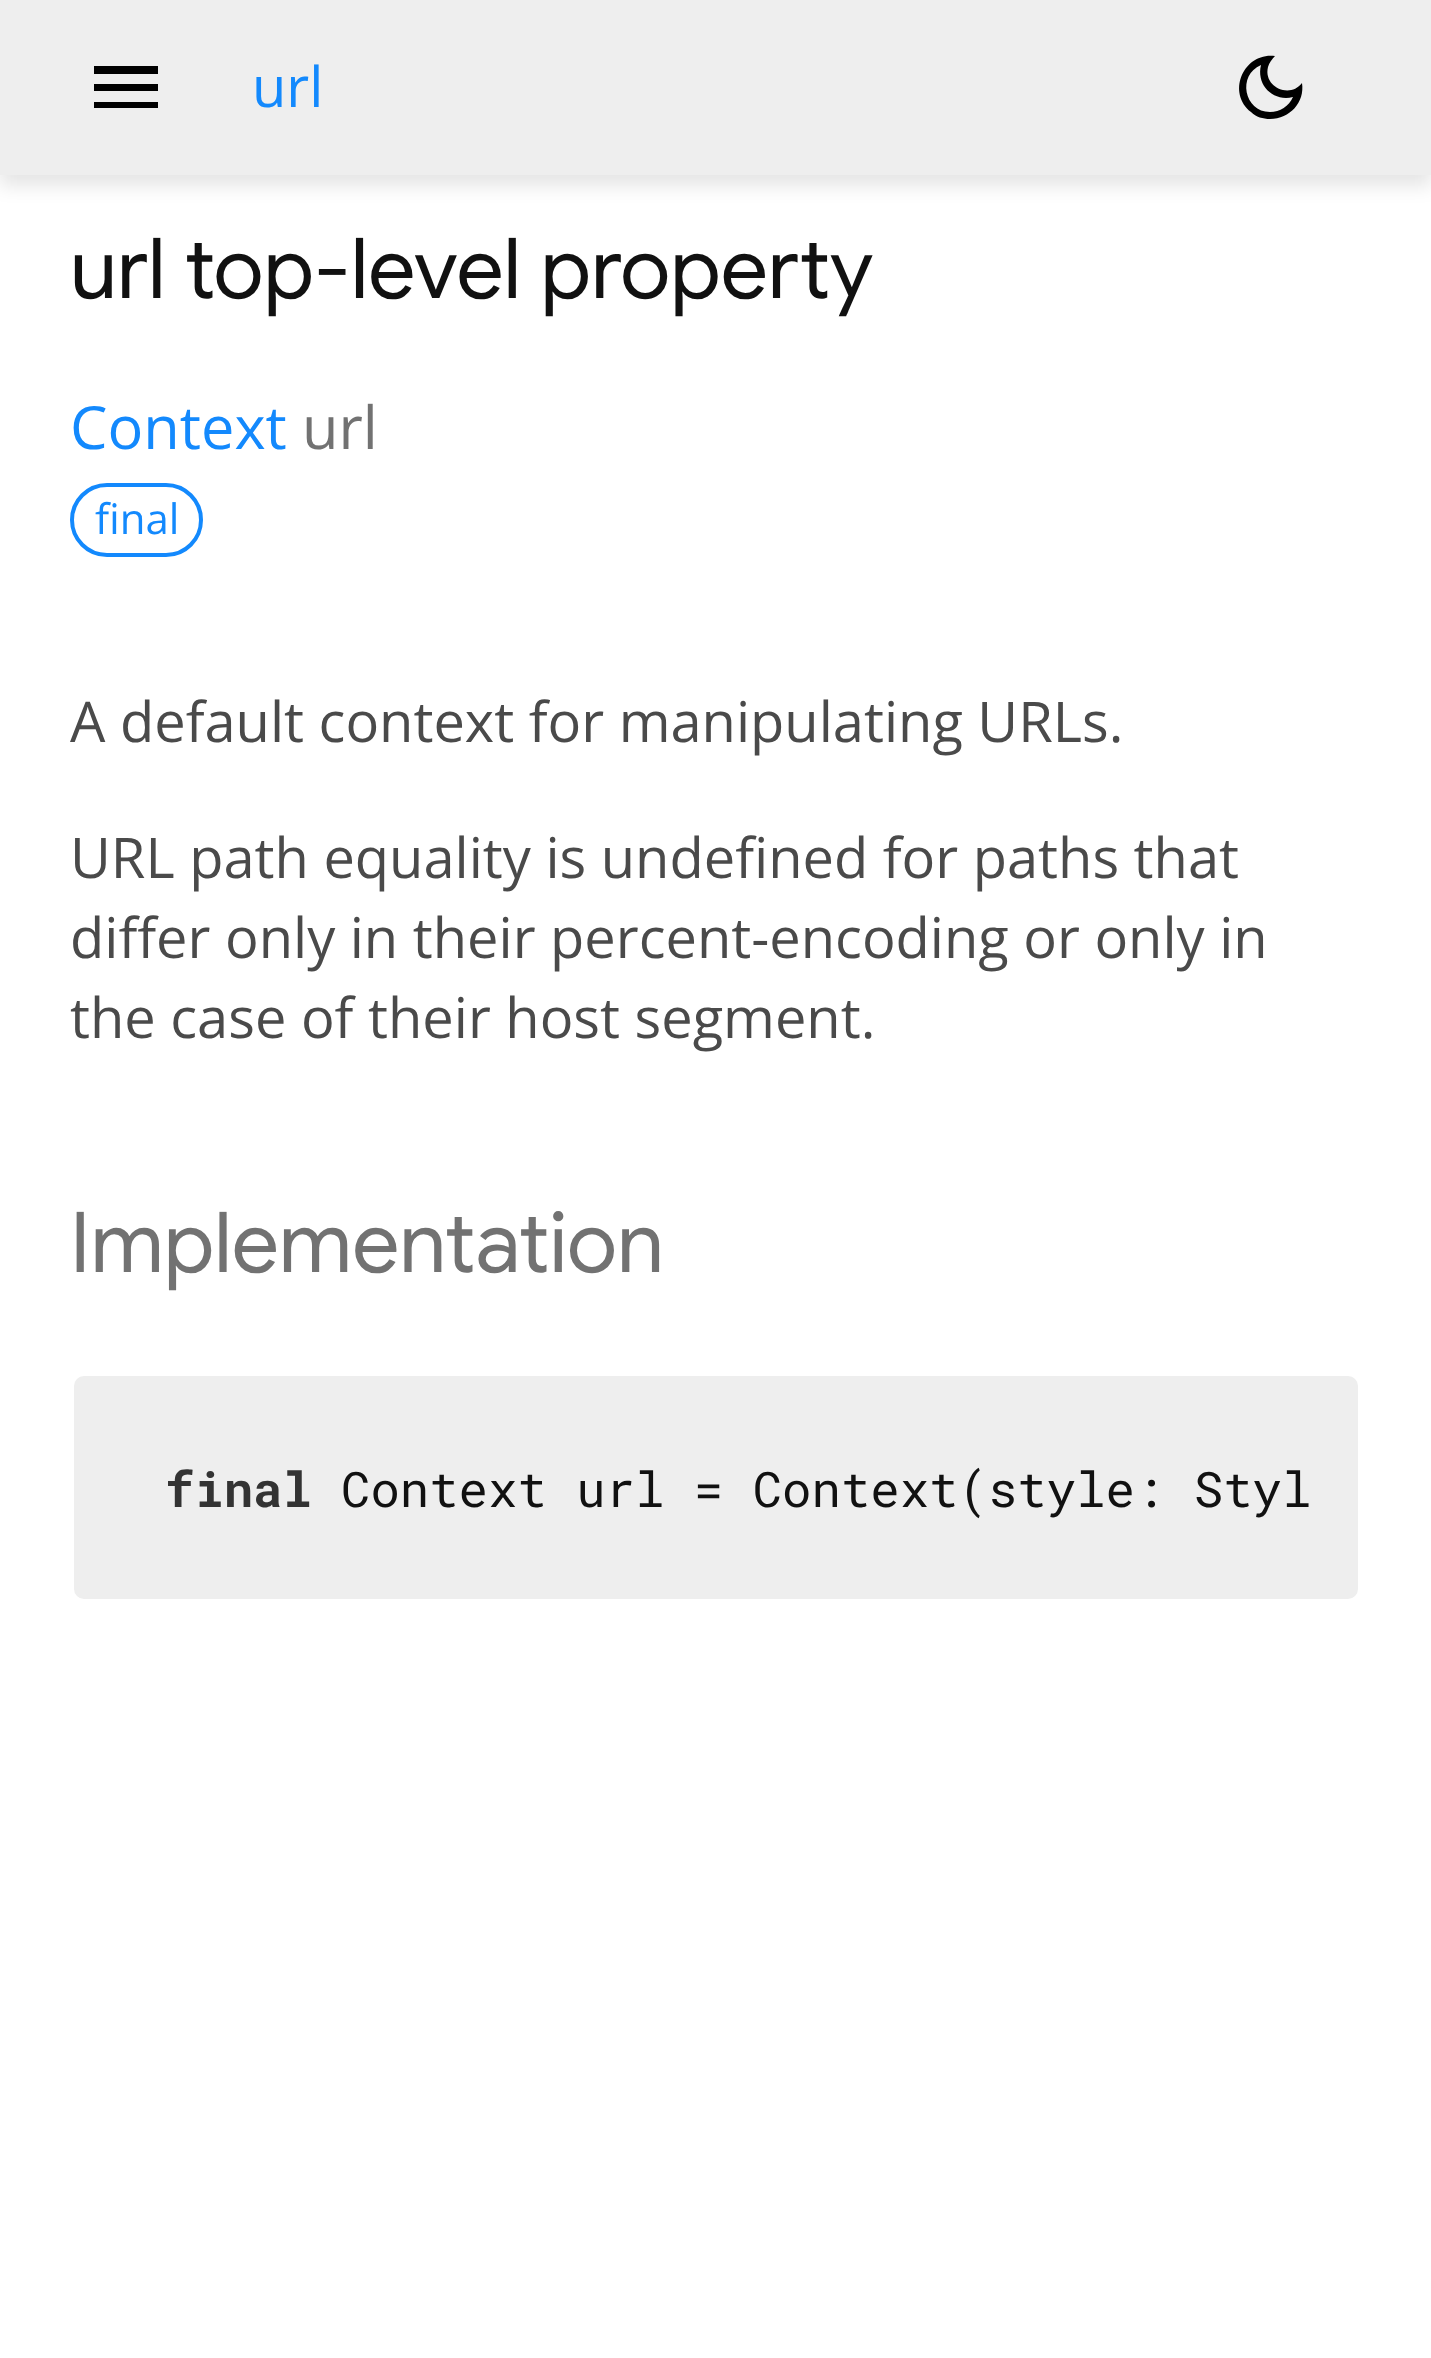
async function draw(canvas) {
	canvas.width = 1431;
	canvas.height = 2358;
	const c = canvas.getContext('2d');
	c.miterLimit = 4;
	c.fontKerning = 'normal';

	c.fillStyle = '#fff';
	c.fillRect(0, 0, 1431, 2358);
	c.fillStyle = '#0000001a';
	c.filter = 'blur(9px)';
	c.beginPath();
	c.rect(0, 11, 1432, 175);
	c.fill();
	c.filter = 'none';
	c.fillStyle = '#eee';
	c.fillRect(0, 0, 1431, 175);
	c.fillStyle = '#000';
	c.beginPath();
	c.moveTo(94, 108);
	c.lineTo(94, 102);
	c.lineTo(158, 102);
	c.lineTo(158, 108);
	c.closePath();
	c.moveTo(94, 91);
	c.lineTo(94, 84);
	c.lineTo(158, 84);
	c.lineTo(158, 91);
	c.closePath();
	c.moveTo(94, 74);
	c.lineTo(94, 66);
	c.lineTo(158, 66);
	c.lineTo(158, 74);
	c.closePath();
	c.fill();
	c.font = '56px Open Sans';
	c.fillStyle = '#1389fd';
	c.fillText('url', 252, 107);
	c.fillStyle = '#000';
	c.beginPath();
	c.moveTo(1270, 119);
	c.bezierCurveTo(1263, 119, 1256, 117, 1251, 112);
	c.bezierCurveTo(1226, 92, 1244, 52, 1275, 56);
	c.bezierCurveTo(1272, 59, 1269, 63, 1268, 67);
	c.bezierCurveTo(1263, 87, 1290, 99, 1302, 83);
	c.bezierCurveTo(1305, 102, 1290, 119, 1270, 119);
	c.closePath();
	c.moveTo(1270, 112);
	c.bezierCurveTo(1280, 112, 1289, 106, 1293, 97);
	c.bezierCurveTo(1273, 102, 1256, 85, 1261, 65);
	c.bezierCurveTo(1237, 75, 1244, 112, 1270, 112);
	c.closePath();
	c.moveTo(1270, 88);
	c.closePath();
	c.fill();
	c.font = '84px Google Sans';
	c.fillStyle = '#111';
	c.fillText('url top-level property', 70, 298);
	c.font = '59.5px Open Sans';
	c.fillStyle = '#1389fd';
	c.fillText('Context', 70, 449);
	c.fillStyle = '#727272';
	c.fillText('url', 302, 449);
	c.beginPath();
	c.roundRect(72, 485, 129, 70, 35);
	c.strokeStyle = '#1389fd';
	c.lineWidth = 4;
	c.stroke();
	c.font = '42px Open Sans';
	c.fillStyle = '#1389fd';
	c.fillText('final', 95, 534);
	c.font = '56px Open Sans';
	c.fillStyle = '#4a4a4a';
	for (const [text, x, y] of [
		['A default context for manipulating URLs.', 70, 742],
		['URL path equality is undefined for paths that', 70, 878],
		['differ only in their percent-encoding or only in', 70, 958],
		['the case of their host segment.', 70, 1038],
	]) {
		c.fillText(text, x, y);
	}
	c.font = '84px Google Sans';
	c.fillStyle = '#727272';
	c.fillText('Implementation', 70, 1272);
	c.fillStyle = '#eee';
	c.beginPath();
	c.roundRect(72, 1374, 1288, 227, 12);
	c.fill();
	c.strokeStyle = '#fff';
	c.stroke();
	c.font = 'bold 49px Roboto Mono';
	c.fillStyle = '#333';
	c.fillText('final', 165, 1507);
	c.font = '49px Roboto Mono';
	c.fillStyle = '#111';
	c.fillText('Context url = Context(style: Styl', 341, 1507);
}

draw(document.querySelector('canvas'));
